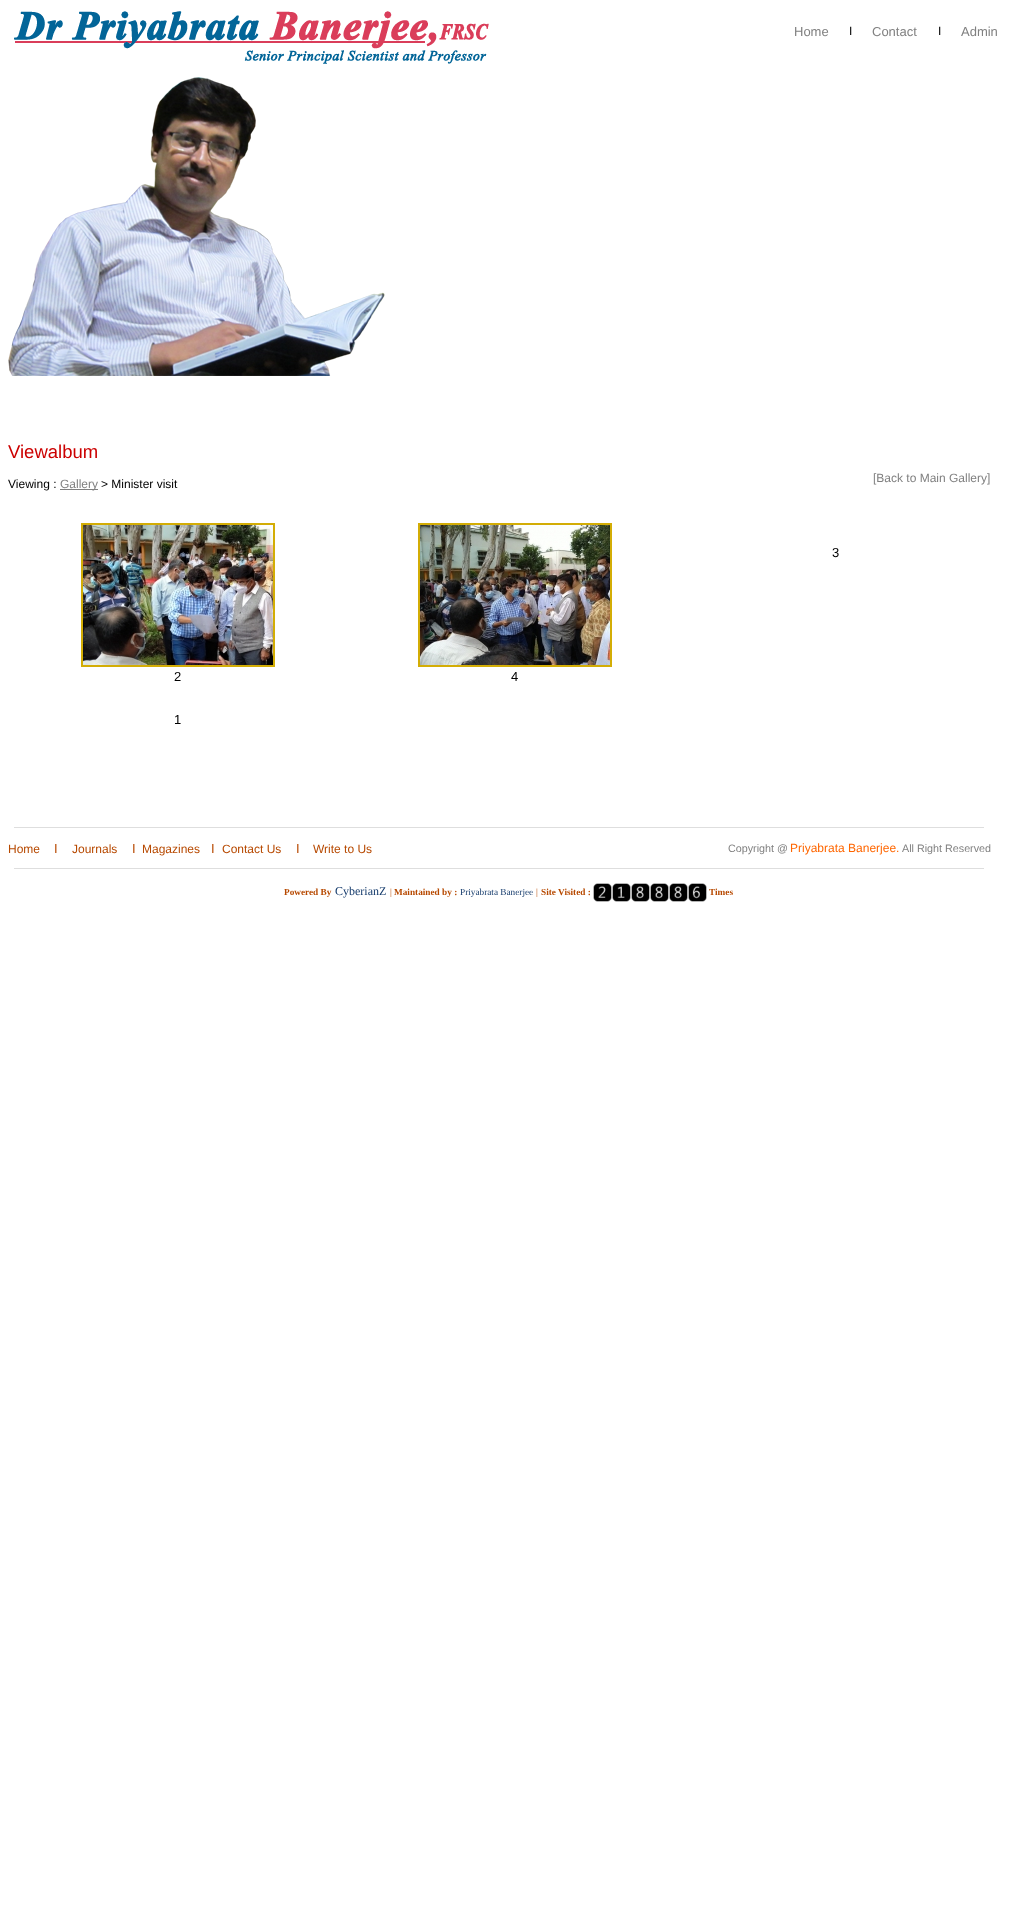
async function draw(canvas) {
	canvas.width = 1018;
	canvas.height = 1925;
	const c = canvas.getContext('2d');
	c.miterLimit = 4;
	c.fontKerning = 'normal';
	async function loadImage(src) {
		const img = new Image();
		img.src = src;
		await img.decode();
		return img;
	}

	c.fillStyle = '#fff';
	c.fillRect(0, 0, 1018, 1925);
	c.drawImage(await loadImage('img1.png'), 14, 11, 475, 53);
	c.font = '13px Liberation Sans';
	c.fillStyle = '#808080';
	c.fillText('Home', 794, 36);
	c.font = '12px Liberation Sans';
	c.fillStyle = '#000';
	c.fillText('I', 849, 35);
	c.font = '13px Liberation Sans';
	c.fillStyle = '#808080';
	c.fillText('Contact', 872, 36);
	c.font = '12px Liberation Sans';
	c.fillStyle = '#000';
	c.fillText('I', 938, 35);
	c.font = '13px Liberation Sans';
	c.fillStyle = '#808080';
	c.fillText('Admin', 961, 36);
	c.drawImage(await loadImage('img2.png'), 8, 77, 377, 299);
	c.font = '18.5px Liberation Sans';
	c.fillStyle = '#c00';
	c.fillText('Viewalbum', 8, 458);
	c.font = '12px Liberation Sans';
	c.fillStyle = '#000';
	c.fillText('Viewing :', 8, 488);
	c.fillStyle = '#808080';
	c.fillRect(60, 489, 38, 1);
	c.fillText('Gallery', 60, 488);
	c.fillStyle = '#000';
	c.fillText('> Minister visit', 101, 488);
	c.fillStyle = '#808080';
	c.fillText('[Back to Main Gallery]', 873, 482);
	c.font = '13px Liberation Sans';
	c.fillStyle = '#000';
	c.fillText('3', 832, 557);
	c.strokeStyle = '#d3ad05';
	c.lineWidth = 2;
	c.strokeRect(82, 524, 192, 142);
	c.drawImage(await loadImage('img3.png'), 83, 525, 190, 140);
	c.fillText('2', 174, 681);
	c.strokeRect(419, 524, 192, 142);
	c.drawImage(await loadImage('img4.png'), 420, 525, 190, 140);
	c.fillText('4', 511, 681);
	c.fillText('1', 174, 724);
	c.fillStyle = '#dedede';
	c.fillRect(14, 827, 970, 1);
	c.font = '12px Liberation Sans';
	c.fillStyle = '#b74900';
	c.fillText('Home', 8, 853);
	c.font = '13px Liberation Sans';
	c.fillText('I', 54, 853);
	c.font = '12px Liberation Sans';
	c.fillText('Journals', 72, 853);
	c.font = '13px Liberation Sans';
	c.fillText('I', 132, 853);
	c.font = '12px Liberation Sans';
	c.fillText('Magazines', 142, 853);
	c.font = '13px Liberation Sans';
	c.fillText('I', 211, 853);
	c.font = '12px Liberation Sans';
	c.fillText('Contact Us', 222, 853);
	c.font = '13px Liberation Sans';
	c.fillText('I', 296, 853);
	c.font = '12px Liberation Sans';
	c.fillText('Write to Us', 313, 853);
	c.font = '10.75px Liberation Sans';
	c.fillStyle = '#808080';
	c.fillText('Copyright @', 728, 852);
	c.font = '12px Liberation Sans';
	c.fillStyle = '#f60';
	c.fillText('Priyabrata Banerjee.', 790, 852);
	c.font = '10.75px Liberation Sans';
	c.fillStyle = '#808080';
	c.fillText('All Right Reserved', 902, 852);
	c.fillStyle = '#dedede';
	c.fillRect(14, 868, 970, 1);
	c.font = 'bold 9.25px Liberation Serif';
	c.fillStyle = '#b74900';
	c.fillText('Powered By', 284, 895);
	c.font = '12px Liberation Serif';
	c.fillStyle = '#153b6c';
	c.fillText('CyberianZ', 335, 895);
	c.font = '9.25px Liberation Serif';
	c.fillStyle = '#b74900';
	c.fillText('|', 390, 895);
	c.font = 'bold 9.25px Liberation Serif';
	c.fillText('Maintained by :', 394, 895);
	c.font = '9.25px Liberation Serif';
	c.fillStyle = '#153b6c';
	c.fillText('Priyabrata Banerjee', 460, 895);
	c.fillStyle = '#b74900';
	c.fillText('|', 536, 895);
	c.font = 'bold 9.25px Liberation Serif';
	c.fillText('Site Visited :', 541, 895);
	c.drawImage(await loadImage('img5.png'), 593, 883, 114, 19);
	c.fillText('Times', 709, 895);
}

draw(document.querySelector('canvas'));
